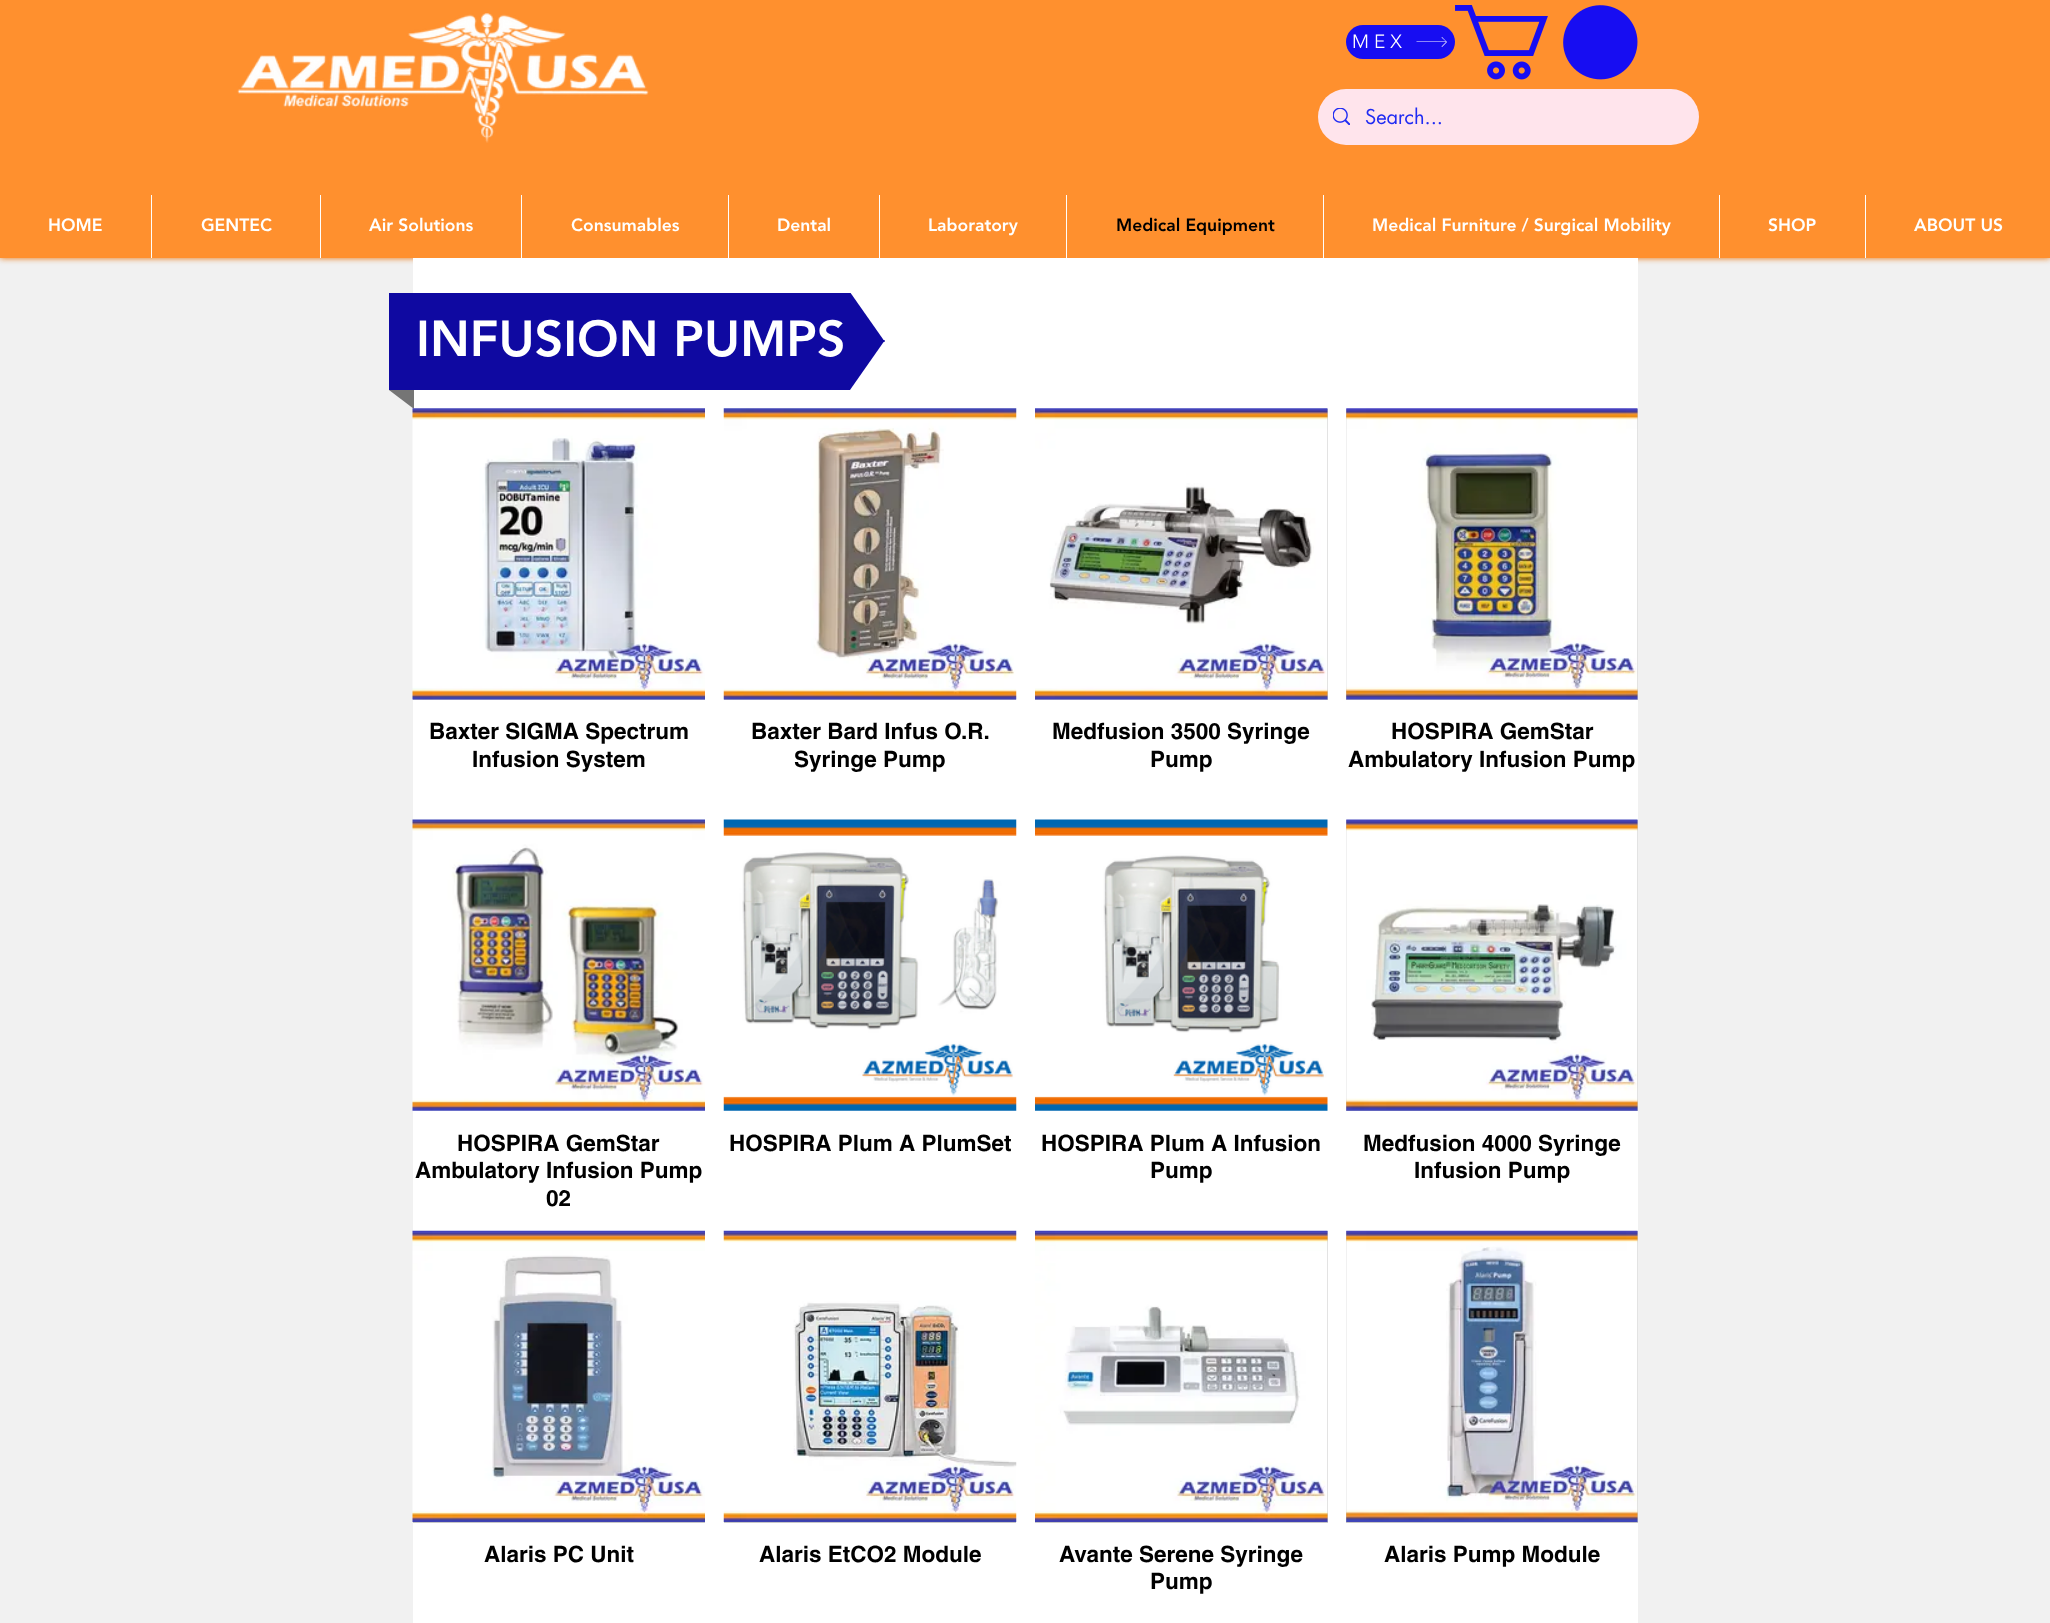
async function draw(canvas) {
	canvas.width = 2050;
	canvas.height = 1623;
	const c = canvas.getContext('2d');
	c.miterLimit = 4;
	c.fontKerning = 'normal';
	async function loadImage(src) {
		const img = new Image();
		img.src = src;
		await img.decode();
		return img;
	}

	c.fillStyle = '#f1f1f1';
	c.fillRect(0, 0, 2050, 1623);
	c.fillStyle = '#e86d00';
	c.filter = 'blur(3px)';
	c.beginPath();
	c.rect(0, -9, 2050, 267);
	c.fill();
	c.filter = 'none';
	c.fillStyle = '#ff902e';
	c.fillRect(0, 0, 2050, 258);
	c.drawImage(await loadImage('img1.png'), 237, 13, 412, 130);
	c.fillStyle = '#170df2';
	c.beginPath();
	c.roundRect(1346, 25, 109, 34, 17);
	c.fill();
	c.letterSpacing = '5px';
	c.font = '300 19px "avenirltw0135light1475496"';
	c.fillStyle = '#fff';
	c.fillText('MEX', 1352, 48);
	c.beginPath();
	c.moveTo(1442, 37);
	c.lineTo(1441.5, 37.5);
	c.lineTo(1446, 41.5);
	c.lineTo(1416.5, 41.5);
	c.lineTo(1416.5, 42);
	c.lineTo(1446, 42);
	c.lineTo(1441.5, 46.5);
	c.lineTo(1442, 47);
	c.lineTo(1447, 42);
	c.closePath();
	c.fill();
	c.drawImage(await loadImage('img2.png'), 1455, 5, 183, 75);
	c.fillStyle = '#ffe4ec';
	c.beginPath();
	c.roundRect(1318, 89, 381, 56, 28);
	c.fill();
	c.drawImage(await loadImage('img3.png'), 1333, 108, 17, 17);
	c.letterSpacing = '0px';
	c.font = '20px futura';
	c.fillStyle = '#1f2bf3';
	c.fillText('Search...', 1365, 124);
	c.font = '900 17.5px "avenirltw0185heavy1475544"';
	c.fillStyle = '#fff';
	c.fillText('HOME', 48, 231);
	c.fillStyle = '#fffefd';
	c.fillRect(151, 195, 1, 63);
	c.fillStyle = '#fff';
	c.fillText('GENTEC', 201, 231);
	c.fillStyle = '#fffefd';
	c.fillRect(320, 195, 1, 63);
	c.fillStyle = '#fff';
	c.fillText('Air Solutions', 369, 231);
	c.fillStyle = '#fffefd';
	c.fillRect(521, 195, 1, 63);
	c.fillStyle = '#fff';
	c.fillText('Consumables', 571, 231);
	c.fillStyle = '#fffefd';
	c.fillRect(728, 195, 1, 63);
	c.fillStyle = '#fff';
	c.fillText('Dental', 777, 231);
	c.fillStyle = '#fffefd';
	c.fillRect(879, 195, 1, 63);
	c.fillStyle = '#fff';
	c.fillText('Laboratory', 928, 231);
	c.fillStyle = '#fffefd';
	c.fillRect(1066, 195, 1, 63);
	c.fillStyle = '#000';
	c.fillText('Medical Equipment', 1116, 231);
	c.fillStyle = '#fffefd';
	c.fillRect(1323, 195, 1, 63);
	c.fillStyle = '#fff';
	c.fillText('Medical Furniture / Surgical Mobility', 1372, 231);
	c.fillStyle = '#fffefd';
	c.fillRect(1719, 195, 1, 63);
	c.fillStyle = '#fff';
	c.fillText('SHOP', 1768, 231);
	c.fillStyle = '#fffefd';
	c.fillRect(1865, 195, 1, 63);
	c.fillStyle = '#fff';
	c.fillText('ABOUT US', 1914, 231);
	c.fillRect(413, 258, 1225, 1365);
	c.save();
	c.beginPath();
	c.rect(389, 293, 496, 97);
	c.clip();
	c.fillStyle = '#0f09a1';
	c.beginPath();
	c.moveTo(-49, 340);
	c.lineTo(885, 340);
	c.lineTo(448, 964);
	c.lineTo(-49, 964);
	c.closePath();
	c.fill();
	c.beginPath();
	c.moveTo(885, 342);
	c.lineTo(-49, 342);
	c.lineTo(-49, -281);
	c.lineTo(448, -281);
	c.closePath();
	c.fill();
	c.restore();
	c.font = '900 50px "avenirltw0185heavy1475544"';
	c.fillText('INFUSION PUMPS', 416, 356);
	c.fillStyle = '#757575';
	c.beginPath();
	c.moveTo(414, 390);
	c.lineTo(414, 409);
	c.lineTo(389, 390);
	c.closePath();
	c.fill();
	c.fillStyle = '#c7c7c7';
	c.fillRect(413, 699, 292, 1);
	c.drawImage(await loadImage('img4.png'), 412, 408, 293, 292);
	c.font = 'bold 22.5px helvetica';
	c.fillStyle = '#000';
	c.fillText('Baxter SIGMA Spectrum', 429, 739);
	c.fillText('Infusion System', 472, 767);
	c.fillStyle = '#c7c7c7';
	c.fillRect(724, 699, 292, 1);
	c.drawImage(await loadImage('img5.png'), 723, 408, 294, 292);
	c.fillStyle = '#000';
	c.fillText('Baxter Bard Infus O.R.', 751, 739);
	c.fillText('Syringe Pump', 794, 767);
	c.fillStyle = '#c7c7c7';
	c.fillRect(1035, 409, 293, 291);
	c.drawImage(await loadImage('img6.png'), 1035, 408, 293, 292);
	c.fillStyle = '#000';
	c.fillText('Medfusion 3500 Syringe', 1052, 739);
	c.fillText('Pump', 1150, 767);
	c.fillStyle = '#c7c7c7';
	c.fillRect(1346, 409, 292, 291);
	c.drawImage(await loadImage('img7.png'), 1346, 408, 292, 292);
	c.fillStyle = '#000';
	c.fillText('HOSPIRA GemStar', 1391, 739);
	c.fillText('Ambulatory Infusion Pump', 1348, 767);
	c.drawImage(await loadImage('img8.png'), 412, 819, 293, 292);
	for (const [text, x, y] of [
		['HOSPIRA GemStar', 457, 1151],
		['Ambulatory Infusion Pump', 415, 1178],
		['02', 546, 1206],
	]) {
		c.fillText(text, x, y);
	}
	c.drawImage(await loadImage('img9.png'), 723, 819, 294, 292);
	c.fillText('HOSPIRA Plum A PlumSet', 729, 1151);
	c.drawImage(await loadImage('img10.png'), 1035, 819, 293, 292);
	c.fillText('HOSPIRA Plum A Infusion', 1041, 1151);
	c.fillText('Pump', 1150, 1178);
	c.fillStyle = '#c7c7c7';
	c.fillRect(1346, 820, 292, 291);
	c.drawImage(await loadImage('img11.png'), 1346, 819, 292, 292);
	c.fillStyle = '#000';
	c.fillText('Medfusion 4000 Syringe', 1363, 1151);
	c.fillText('Infusion Pump', 1414, 1178);
	c.fillStyle = '#c7c7c7';
	c.fillRect(413, 1522, 292, 1);
	c.drawImage(await loadImage('img12.png'), 412, 1230, 293, 292);
	c.fillStyle = '#000';
	c.fillText('Alaris PC Unit', 484, 1562);
	c.fillStyle = '#c7c7c7';
	c.fillRect(724, 1522, 292, 1);
	c.drawImage(await loadImage('img13.png'), 723, 1230, 294, 292);
	c.fillStyle = '#000';
	c.fillText('Alaris EtCO2 Module', 759, 1562);
	c.fillStyle = '#c7c7c7';
	c.fillRect(1035, 1231, 293, 292);
	c.drawImage(await loadImage('img14.png'), 1035, 1230, 293, 292);
	c.fillStyle = '#000';
	c.fillText('Avante Serene Syringe', 1059, 1562);
	c.fillText('Pump', 1150, 1589);
	c.fillStyle = '#c7c7c7';
	c.fillRect(1346, 1231, 292, 292);
	c.drawImage(await loadImage('img15.png'), 1346, 1230, 292, 292);
	c.fillStyle = '#000';
	c.fillText('Alaris Pump Module', 1384, 1562);
}

draw(document.querySelector('canvas'));
